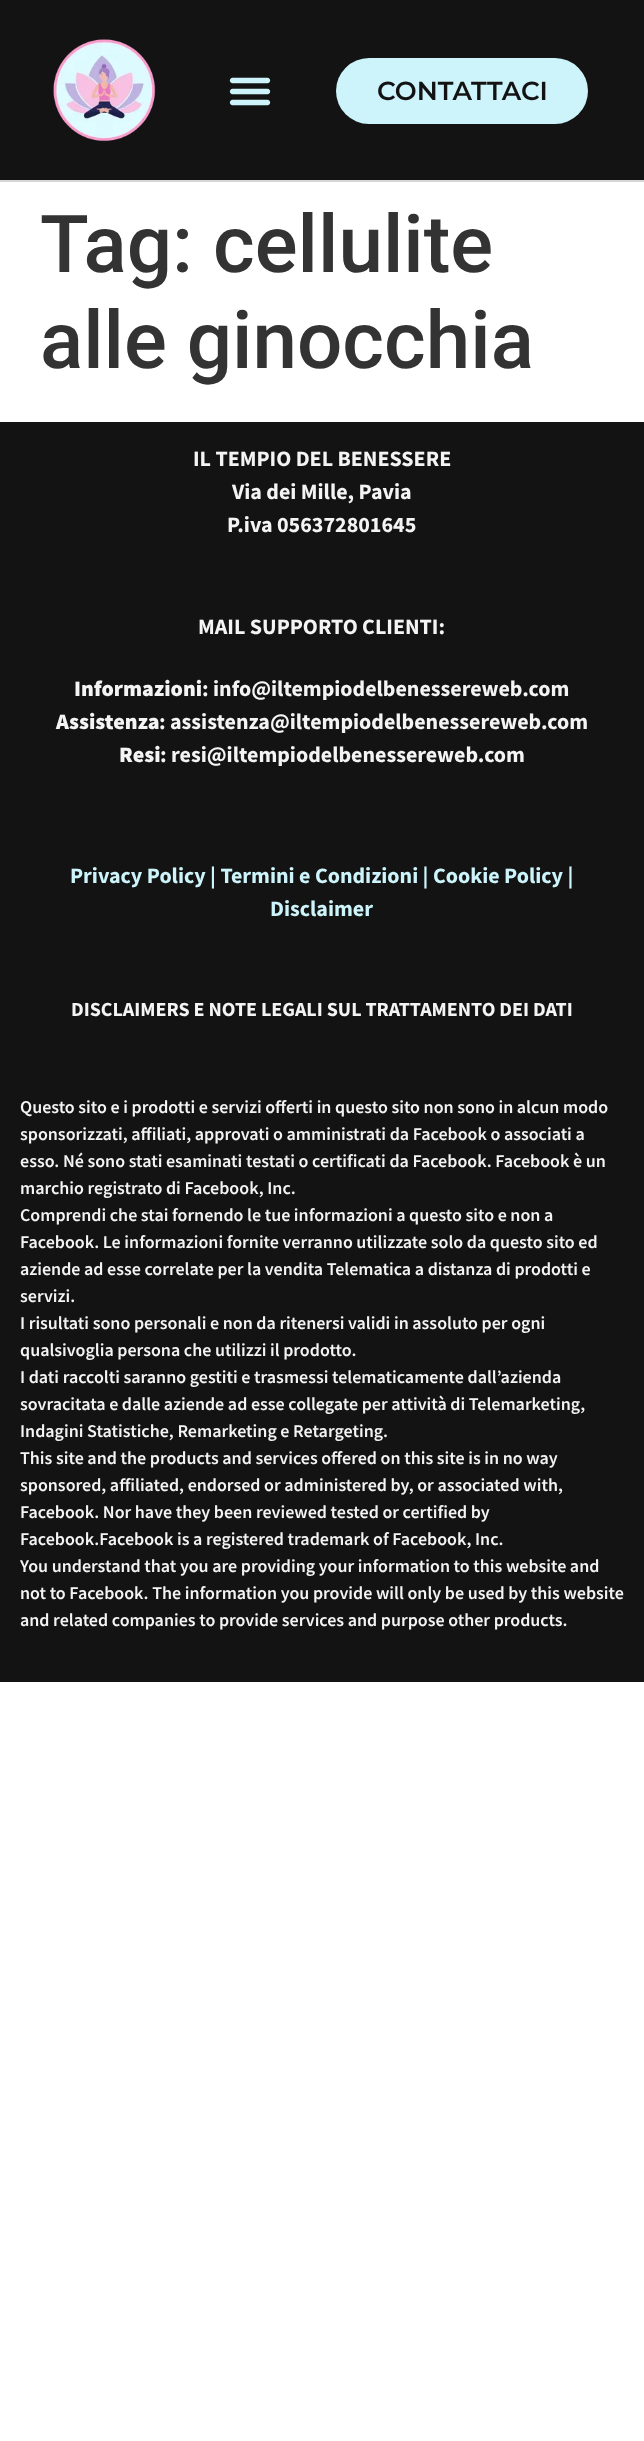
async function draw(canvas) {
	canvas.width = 644;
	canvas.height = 2441;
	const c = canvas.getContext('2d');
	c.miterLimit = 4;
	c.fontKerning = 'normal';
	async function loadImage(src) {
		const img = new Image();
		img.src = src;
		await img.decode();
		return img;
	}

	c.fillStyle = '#fff';
	c.fillRect(0, 0, 644, 2441);
	c.fillStyle = '#131313';
	c.fillRect(0, 0, 644, 180);
	c.fillStyle = '#d6d6d6';
	c.fillRect(0, 180, 644, 2);
	c.drawImage(await loadImage('img1.png'), 53, 39, 103, 103);
	c.drawImage(await loadImage('img2.png'), 229, 77, 42, 29);
	c.fillStyle = '#ccf4fa';
	c.beginPath();
	c.roundRect(336, 58, 252, 66, 33);
	c.fill();
	c.font = '100 26px Montserrat';
	c.fillStyle = '#131313';
	c.fillText('CONTATTACI', 377, 100);
	c.font = '500 80px Roboto';
	c.fillStyle = '#333';
	c.fillText('Tag: cellulite', 40, 272);
	c.fillText('alle ginocchia', 40, 368);
	c.fillStyle = '#131313';
	c.fillRect(0, 422, 644, 1260);
	c.font = 'bold 22px Source Sans Pro';
	c.fillStyle = '#f4f4f4';
	for (const [text, x, y] of [
		['IL TEMPIO DEL BENESSERE', 193, 466],
		['Via dei Mille, Pavia', 232, 499],
		['P.iva 056372801645', 227, 532],
		['MAIL SUPPORTO CLIENTI:', 198, 634],
	]) {
		c.fillText(text, x, y);
	}
	c.font = '900 22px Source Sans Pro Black';
	c.fillText('Informazioni', 74, 696);
	c.font = 'bold 22px Source Sans Pro';
	c.fillText(': info@iltempiodelbenessereweb.com', 202, 696);
	c.font = '900 22px Source Sans Pro Black';
	c.fillText('Assistenza', 56, 729);
	c.font = 'bold 22px Source Sans Pro';
	c.fillText(': assistenza@iltempiodelbenessereweb.com', 159, 729);
	c.font = '900 22px Source Sans Pro Black';
	c.fillText('Resi', 119, 762);
	c.font = 'bold 22px Source Sans Pro';
	c.fillText(': resi@iltempiodelbenessereweb.com', 160, 762);
	c.fillStyle = '#ccf4fa';
	c.fillText('Privacy Policy | Termini e Condizioni | Cookie Policy |', 70, 883);
	c.fillText('Disclaimer', 270, 916);
	c.font = 'bold 20px Source Sans Pro';
	c.fillStyle = '#f4f4f4';
	c.fillText('DISCLAIMERS E NOTE LEGALI SUL TRATTAMENTO DEI DATI', 71, 1016);
	c.font = '600 18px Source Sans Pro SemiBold';
	for (const [text, x, y] of [
		['Questo sito e i prodotti e servizi offerti in questo sito non sono in alcun modo', 20, 1113],
		['sponsorizzati, affiliati, approvati o amministrati da Facebook o associati a', 20, 1140],
		['esso. Né sono stati esaminati testati o certificati da Facebook. Facebook è un', 20, 1167],
		['marchio registrato di Facebook, Inc.', 20, 1194],
		['Comprendi che stai fornendo le tue informazioni a questo sito e non a', 20, 1221],
		['Facebook. Le informazioni fornite verranno utilizzate solo da questo sito ed', 20, 1248],
		['aziende ad esse correlate per la vendita Telematica a distanza di prodotti e', 20, 1275],
		['servizi.', 20, 1302],
		['I risultati sono personali e non da ritenersi validi in assoluto per ogni', 20, 1329],
		['qualsivoglia persona che utilizzi il prodotto.', 20, 1356],
		['I dati raccolti saranno gestiti e trasmessi telematicamente dall’azienda', 20, 1383],
		['sovracitata e dalle aziende ad esse collegate per attività di Telemarketing,', 20, 1410],
		['Indagini Statistiche, Remarketing e Retargeting.', 20, 1437],
		['This site and the products and services offered on this site is in no way', 20, 1464],
		['sponsored, affiliated, endorsed or administered by, or associated with,', 20, 1491],
		['Facebook. Nor have they been reviewed tested or certified by', 20, 1518],
		['Facebook.Facebook is a registered trademark of Facebook, Inc.', 20, 1545],
		['You understand that you are providing your information to this website and', 20, 1572],
		['not to Facebook. The information you provide will only be used by this website', 20, 1599],
		['and related companies to provide services and purpose other products.', 20, 1626],
	]) {
		c.fillText(text, x, y);
	}
}

draw(document.querySelector('canvas'));
